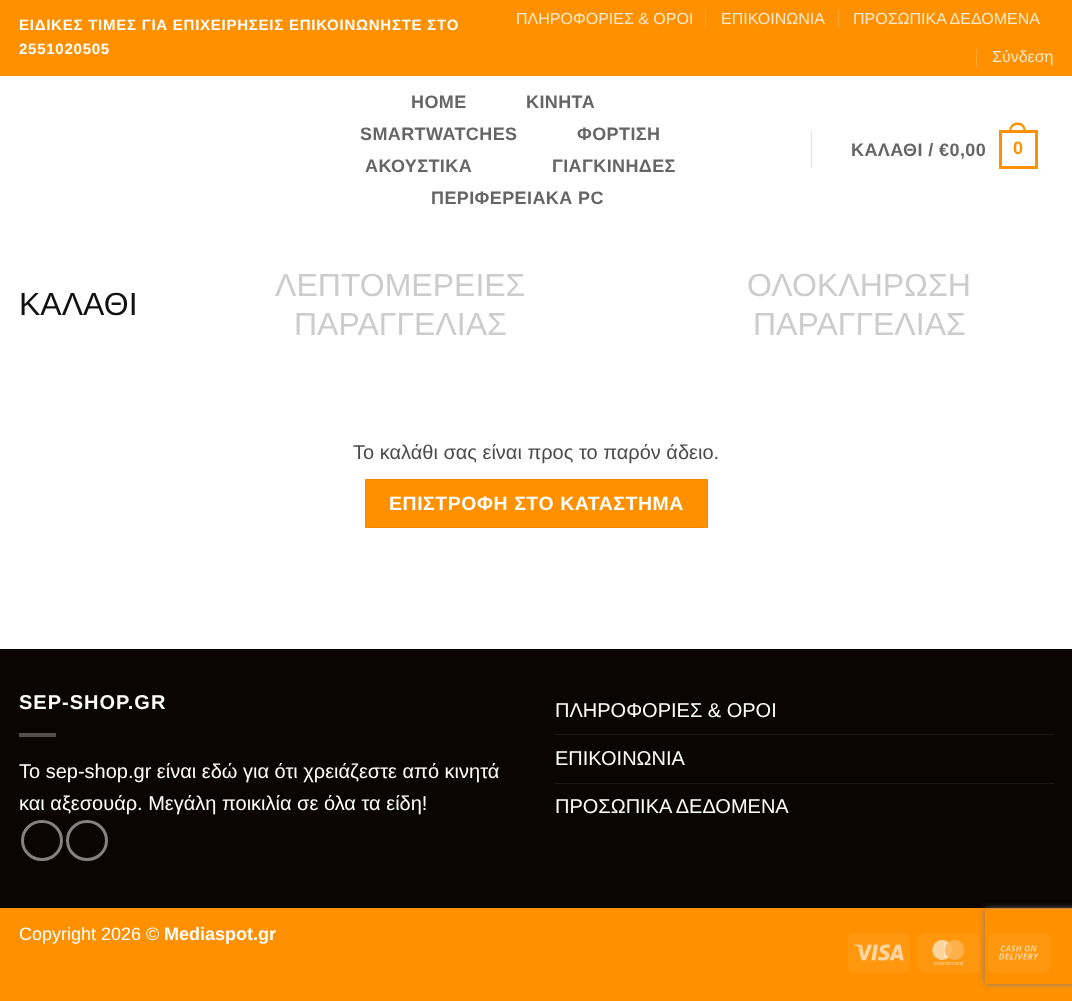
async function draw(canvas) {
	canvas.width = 1072;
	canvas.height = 1001;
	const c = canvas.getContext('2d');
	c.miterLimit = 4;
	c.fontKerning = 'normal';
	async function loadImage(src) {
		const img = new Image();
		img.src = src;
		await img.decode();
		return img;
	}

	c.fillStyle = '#ff9000';
	c.fillRect(0, 0, 1072, 1001);
	c.fillStyle = '#fff';
	c.fillRect(0, 76, 1072, 573);
	c.letterSpacing = '0.75px';
	c.font = 'bold 15px Liberation Sans';
	c.fillText('ΕΙΔΙΚΕΣ ΤΙΜΕΣ ΓΙΑ ΕΠΙΧΕΙΡΗΣΕΙΣ ΕΠΙΚΟΙΝΩΝΗΣΤΕ ΣΤΟ', 19, 30);
	c.fillText('2551020505', 19, 54);
	c.letterSpacing = '0px';
	c.font = '16px Liberation Sans';
	c.fillStyle = '#ffe9cc';
	c.fillText('ΠΛΗΡΟΦΟΡΙΕΣ & ΟΡΟΙ', 516, 24);
	c.fillStyle = '#ffa633';
	c.fillRect(705, 10, 1, 19);
	c.fillStyle = '#ffe9cc';
	c.fillText('ΕΠΙΚΟΙΝΩΝΙΑ', 721, 24);
	c.fillStyle = '#ffa633';
	c.fillRect(838, 10, 1, 19);
	c.fillStyle = '#ffe9cc';
	c.fillText('ΠΡΟΣΩΠΙΚΑ ΔΕΔΟΜΕΝΑ', 853, 24);
	c.fillStyle = '#ffa633';
	c.fillRect(976, 49, 1, 19);
	c.fillStyle = '#ffe9cc';
	c.fillText('Σύνδεση', 992, 62);
	c.letterSpacing = '0.4px';
	c.font = 'bold 18px Liberation Sans';
	c.fillStyle = '#656565';
	for (const [text, x, y] of [
		['HOME', 411, 108],
		['ΚΙΝΗΤΑ', 526, 108],
		['SMARTWATCHES', 360, 140],
		['ΦΟΡΤΙΣΗ', 577, 140],
		['ΑΚΟΥΣΤΙΚΑ', 365, 172],
		['ΓΙΑΓΚΙΝΗΔΕΣ', 552, 172],
		['ΠΕΡΙΦΕΡΕΙΑΚΑ PC', 431, 204],
	]) {
		c.fillText(text, x, y);
	}
	c.fillStyle = '#e6e6e6';
	c.fillRect(811, 130, 1, 38);
	c.fillStyle = '#656565';
	c.fillText('ΚΑΛΑΘΙ / €0,00', 851, 156);
	c.strokeStyle = '#ff9000';
	c.lineWidth = 3;
	c.strokeRect(1000.5, 131.5, 36, 36);
	c.fillStyle = '#ff9000';
	c.beginPath();
	c.moveTo(1017.5, 122.5);
	c.bezierCurveTo(1023.5, 122.5, 1026, 127, 1026, 132.5);
	c.lineTo(1009, 132.5);
	c.bezierCurveTo(1009, 127, 1011.5, 122.5, 1017.5, 122.5);
	c.closePath();
	c.moveTo(1017.5, 125);
	c.bezierCurveTo(1022, 125, 1024, 128.5, 1024, 132.5);
	c.lineTo(1011, 132.5);
	c.bezierCurveTo(1011, 128.5, 1013, 125, 1017.5, 125);
	c.closePath();
	c.fill('evenodd');
	c.fillText('0', 1013, 154);
	c.letterSpacing = '0px';
	c.font = '32px Liberation Sans';
	c.fillStyle = '#111';
	c.fillText('ΚΑΛΑΘΙ', 19, 315);
	c.fillStyle = '#ccc';
	for (const [text, x, y] of [
		['ΛΕΠΤΟΜΕΡΕΙΕΣ', 275, 296],
		['ΠΑΡΑΓΓΕΛΙΑΣ', 294, 335],
		['ΟΛΟΚΛΗΡΩΣΗ', 747, 296],
		['ΠΑΡΑΓΓΕΛΙΑΣ', 753, 335],
	]) {
		c.fillText(text, x, y);
	}
	c.font = '20px Liberation Sans';
	c.fillStyle = '#4a4a4a';
	c.fillText('Το καλάθι σας είναι προς το παρόν άδειο.', 353, 459);
	c.fillStyle = '#ff9000';
	c.beginPath();
	c.rect(365.5, 479.5, 342, 48);
	c.fill();
	c.strokeStyle = '#f28900';
	c.lineWidth = 1;
	c.stroke();
	c.letterSpacing = '0.6px';
	c.font = 'bold 19.4px Liberation Sans';
	c.fillStyle = '#fff';
	c.fillText('ΕΠΙΣΤΡΟΦΗ ΣΤΟ ΚΑΤΑΣΤΗΜΑ', 389, 510);
	c.fillStyle = '#0a0404';
	c.fillRect(0, 649, 1072, 259);
	c.letterSpacing = '1px';
	c.font = 'bold 20px Liberation Sans';
	c.fillStyle = '#fff';
	c.fillText('SEP-SHOP.GR', 19, 709);
	c.fillStyle = '#544f4f';
	c.fillRect(19, 733, 37, 4);
	c.letterSpacing = '0px';
	c.font = '20px Liberation Sans';
	c.fillStyle = '#fff';
	c.fillText('To sep-shop.gr είναι εδώ για ότι χρειάζεστε από κινητά', 19, 778);
	c.fillText('και αξεσουάρ. Μεγάλη ποικιλία σε όλα τα είδη!', 19, 810);
	c.beginPath();
	c.roundRect(22.5, 821.5, 39, 38, 19);
	c.strokeStyle = '#858282';
	c.lineWidth = 3;
	c.stroke();
	c.beginPath();
	c.roundRect(67.5, 821.5, 39, 38, 19);
	c.stroke();
	c.fillText('ΠΛΗΡΟΦΟΡΙΕΣ & ΟΡΟΙ', 555, 717);
	c.fillStyle = '#1e1818';
	c.fillRect(555, 734, 499, 1);
	c.fillStyle = '#fff';
	c.fillText('ΕΠΙΚΟΙΝΩΝΙΑ', 555, 765);
	c.fillStyle = '#1e1818';
	c.fillRect(555, 783, 499, 1);
	c.fillStyle = '#fff';
	c.fillText('ΠΡΟΣΩΠΙΚΑ ΔΕΔΟΜΕΝΑ', 555, 813);
	c.font = '18px Liberation Sans';
	c.fillText('Copyright 2026 ©', 19, 940);
	c.font = 'bold 18px Liberation Sans';
	c.fillText('Mediaspot.gr', 164, 940);
	c.fillStyle = '#ff970f';
	c.beginPath();
	c.roundRect(848, 933, 62, 40, 6);
	c.fill();
	c.drawImage(await loadImage('img1.png'), 854, 944, 50, 17);
	c.beginPath();
	c.roundRect(918, 933, 62, 40, 6);
	c.fill();
	c.drawImage(await loadImage('img2.png'), 932, 940, 33, 25);
	c.beginPath();
	c.roundRect(988, 933, 62, 40, 6);
	c.fill();
	c.drawImage(await loadImage('img3.png'), 998, 945, 41, 15);
	c.save();
	c.beginPath();
	c.moveTo(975, 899);
	c.lineTo(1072, 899);
	c.lineTo(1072, 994);
	c.lineTo(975, 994);
	c.closePath();
	c.moveTo(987.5, 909);
	c.lineTo(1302.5, 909);
	c.bezierCurveTo(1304, 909, 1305, 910, 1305, 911.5);
	c.lineTo(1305, 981.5);
	c.bezierCurveTo(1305, 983, 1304, 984, 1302.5, 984);
	c.lineTo(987.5, 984);
	c.bezierCurveTo(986, 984, 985, 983, 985, 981.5);
	c.lineTo(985, 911.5);
	c.bezierCurveTo(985, 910, 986, 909, 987.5, 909);
	c.closePath();
	c.clip('evenodd');
	c.fillStyle = '#808080';
	c.filter = 'blur(3px)';
	c.beginPath();
	c.roundRect(985, 909, 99, 75, 2.5);
	c.fill();
	c.filter = 'none';
	c.restore();
}

draw(document.querySelector('canvas'));
